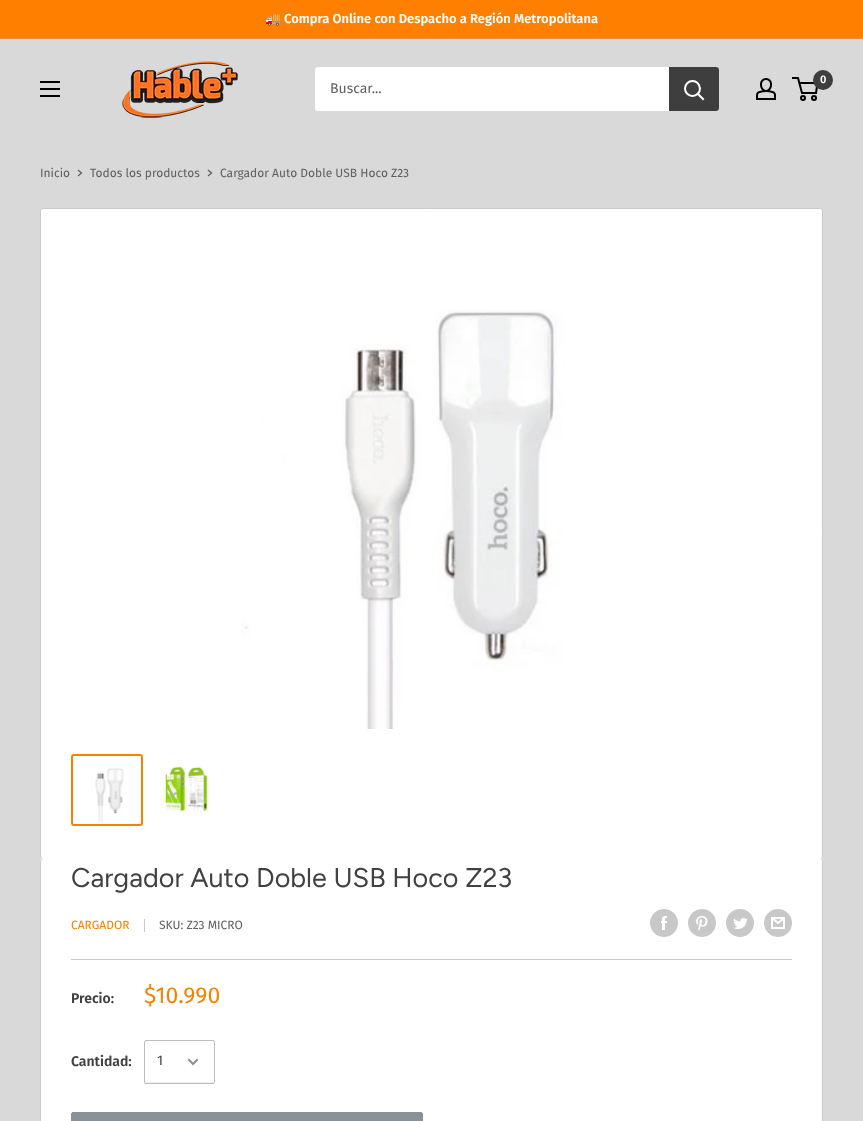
async function draw(canvas) {
	canvas.width = 863;
	canvas.height = 1121;
	const c = canvas.getContext('2d');
	c.miterLimit = 4;
	c.fontKerning = 'normal';
	async function loadImage(src) {
		const img = new Image();
		img.src = src;
		await img.decode();
		return img;
	}

	c.fillStyle = '#d9d9d9';
	c.fillRect(0, 0, 863, 1121);
	c.fillStyle = '#ff7f00';
	c.fillRect(0, 0, 863, 38);
	c.fillStyle = '#e38d48';
	c.fillRect(0, 38, 863, 1);
	c.font = 'bold 13px Noto Color Emoji';
	c.fillStyle = '#fff';
	c.fillText('🚚', 265, 23);
	c.font = '600 13px Fira Sans';
	c.fillText('Compra Online con Despacho a Región Metropolitana', 284, 23);
	c.drawImage(await loadImage('img1.png'), 122, 61, 116, 57);
	c.drawImage(await loadImage('img2.png'), 756, 78, 20, 22);
	c.beginPath();
	c.arc(803, 98, 2, 0, 2 * Math.PI);
	c.strokeStyle = '#000';
	c.lineWidth = 2;
	c.stroke();
	c.beginPath();
	c.arc(814, 98, 2, 0, 2 * Math.PI);
	c.stroke();
	c.beginPath();
	c.moveTo(799.5, 83);
	c.lineTo(817.5, 83);
	c.lineTo(816, 93);
	c.lineTo(802, 93);
	c.lineTo(798, 78);
	c.lineTo(792, 78);
	c.stroke();
	c.fillStyle = '#3e3e3e';
	c.beginPath();
	c.arc(823, 80, 10, 0, 2 * Math.PI);
	c.fill();
	c.font = '600 11px Fira Sans';
	c.fillStyle = '#fff';
	c.fillText('0', 820, 83);
	c.drawImage(await loadImage('img3.png'), 40, 81, 20, 16);
	c.beginPath();
	c.roundRect(315, 67, 404, 44, 3);
	c.fill();
	c.font = '14px Fira Sans';
	c.fillStyle = '#606060';
	c.fillText('Buscar...', 330, 93);
	c.fillStyle = '#3e3e3e';
	c.beginPath();
	c.roundRect(669, 67, 50, 44, [0, 3, 3, 0]);
	c.fill();
	c.beginPath();
	c.moveTo(703, 99);
	c.lineTo(698, 94);
	c.strokeStyle = '#fff';
	c.lineCap = 'square';
	c.stroke();
	c.beginPath();
	c.arc(692.5, 88.5, 7.5, 0, 2 * Math.PI);
	c.stroke();
	c.font = '12px Fira Sans';
	c.fillStyle = '#606060';
	c.fillText('Inicio', 40, 177);
	c.beginPath();
	c.moveTo(78.5, 170.5);
	c.lineTo(81.5, 173);
	c.lineTo(78.5, 175.5);
	c.strokeStyle = '#606060';
	c.lineWidth = 1.3;
	c.stroke();
	c.fillText('Todos los productos', 90, 177);
	c.beginPath();
	c.moveTo(208.5, 170.5);
	c.lineTo(211.5, 173);
	c.lineTo(208.5, 175.5);
	c.stroke();
	c.fillText('Cargador Auto Doble USB Hoco Z23', 220, 177);
	c.fillStyle = '#fff';
	c.beginPath();
	c.roundRect(40.5, 208.5, 782, 650, 2.5);
	c.fill();
	c.strokeStyle = '#cacaca';
	c.lineWidth = 1;
	c.stroke();
	c.drawImage(await loadImage('img4.png'), 241, 309, 324, 420);
	c.beginPath();
	c.roundRect(72, 755, 70, 70, 2);
	c.strokeStyle = '#f28400';
	c.lineWidth = 2;
	c.stroke();
	c.drawImage(await loadImage('img5.png'), 95, 768, 29, 54);
	c.drawImage(await loadImage('img6.png'), 164, 766, 46, 47);
	c.beginPath();
	c.moveTo(43, 858);
	c.bezierCurveTo(41, 858, 40, 860, 40, 862);
	c.bezierCurveTo(40, 860, 41, 859, 43, 859);
	c.lineTo(820, 859);
	c.bezierCurveTo(822, 859, 823, 860, 823, 862);
	c.bezierCurveTo(823, 860, 822, 858, 820, 858);
	c.closePath();
	c.fill();
	c.beginPath();
	c.roundRect(40, 859, 783, 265, 3);
	c.fill();
	c.fillStyle = '#cacaca';
	c.beginPath();
	c.moveTo(43, 859);
	c.lineTo(820, 859);
	c.bezierCurveTo(822, 859, 823, 860, 823, 862);
	c.lineTo(823, 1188);
	c.bezierCurveTo(823, 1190, 822, 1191, 820, 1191);
	c.lineTo(43, 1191);
	c.bezierCurveTo(41, 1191, 40, 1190, 40, 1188);
	c.lineTo(40, 862);
	c.bezierCurveTo(40, 860, 41, 859, 43, 859);
	c.closePath();
	c.moveTo(43, 859);
	c.lineTo(820, 859);
	c.bezierCurveTo(821, 859, 822, 860, 822, 862);
	c.lineTo(822, 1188);
	c.bezierCurveTo(822, 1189, 821, 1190, 820, 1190);
	c.lineTo(43, 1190);
	c.bezierCurveTo(42, 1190, 41, 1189, 41, 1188);
	c.lineTo(41, 862);
	c.bezierCurveTo(41, 860, 42, 859, 43, 859);
	c.closePath();
	c.fill('evenodd');
	c.font = '27px Figtree';
	c.fillStyle = '#414141';
	c.fillText('Cargador Auto Doble USB Hoco Z23', 71, 887);
	c.font = '12px Fira Sans';
	c.fillStyle = '#f28400';
	c.fillText('CARGADOR', 71, 929);
	c.fillStyle = '#cacaca';
	c.fillRect(144, 919, 1, 13);
	c.fillStyle = '#606060';
	c.fillText('SKU: Z23 MICRO', 159, 929);
	c.drawImage(await loadImage('img7.png'), 650, 909, 28, 28);
	c.drawImage(await loadImage('img8.png'), 688, 909, 28, 28);
	c.drawImage(await loadImage('img9.png'), 726, 909, 28, 28);
	c.drawImage(await loadImage('img10.png'), 764, 909, 28, 28);
	c.fillStyle = '#cacaca';
	c.fillRect(71, 959, 721, 1);
	c.font = '600 14px Fira Sans';
	c.fillStyle = '#414141';
	c.fillText('Precio:', 71, 1003);
	c.font = '23px Fira Sans';
	c.fillStyle = '#f28400';
	c.fillText('$10.990', 144, 1003);
	c.font = '600 14px Fira Sans';
	c.fillStyle = '#414141';
	c.fillText('Cantidad:', 71, 1066);
	c.fillStyle = '#efefef';
	c.beginPath();
	c.moveTo(145, 1081);
	c.bezierCurveTo(145, 1082, 145, 1083, 146, 1083);
	c.lineTo(202, 1083);
	c.bezierCurveTo(205, 1083, 214, 1086, 214, 1081);
	c.lineTo(213, 1082);
	c.lineTo(150, 1082);
	c.bezierCurveTo(149, 1082, 146, 1083, 145, 1081);
	c.closePath();
	c.fill();
	c.beginPath();
	c.roundRect(144.5, 1040.5, 70, 43, 1.5);
	c.strokeStyle = '#bdbdbd';
	c.lineWidth = 1;
	c.stroke();
	c.font = '14px Fira Sans';
	c.fillStyle = '#414141';
	c.fillText('1', 157, 1065);
	c.beginPath();
	c.moveTo(197, 1060);
	c.lineTo(193, 1064);
	c.lineTo(189, 1060);
	c.strokeStyle = '#909090';
	c.lineWidth = 2;
	c.stroke();
	c.fillStyle = '#8a9297';
	c.beginPath();
	c.roundRect(71.5, 1112.5, 351, 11, 1.5);
	c.fill();
	c.strokeStyle = '#8a9297';
	c.lineWidth = 1;
	c.stroke();
}

draw(document.querySelector('canvas'));
